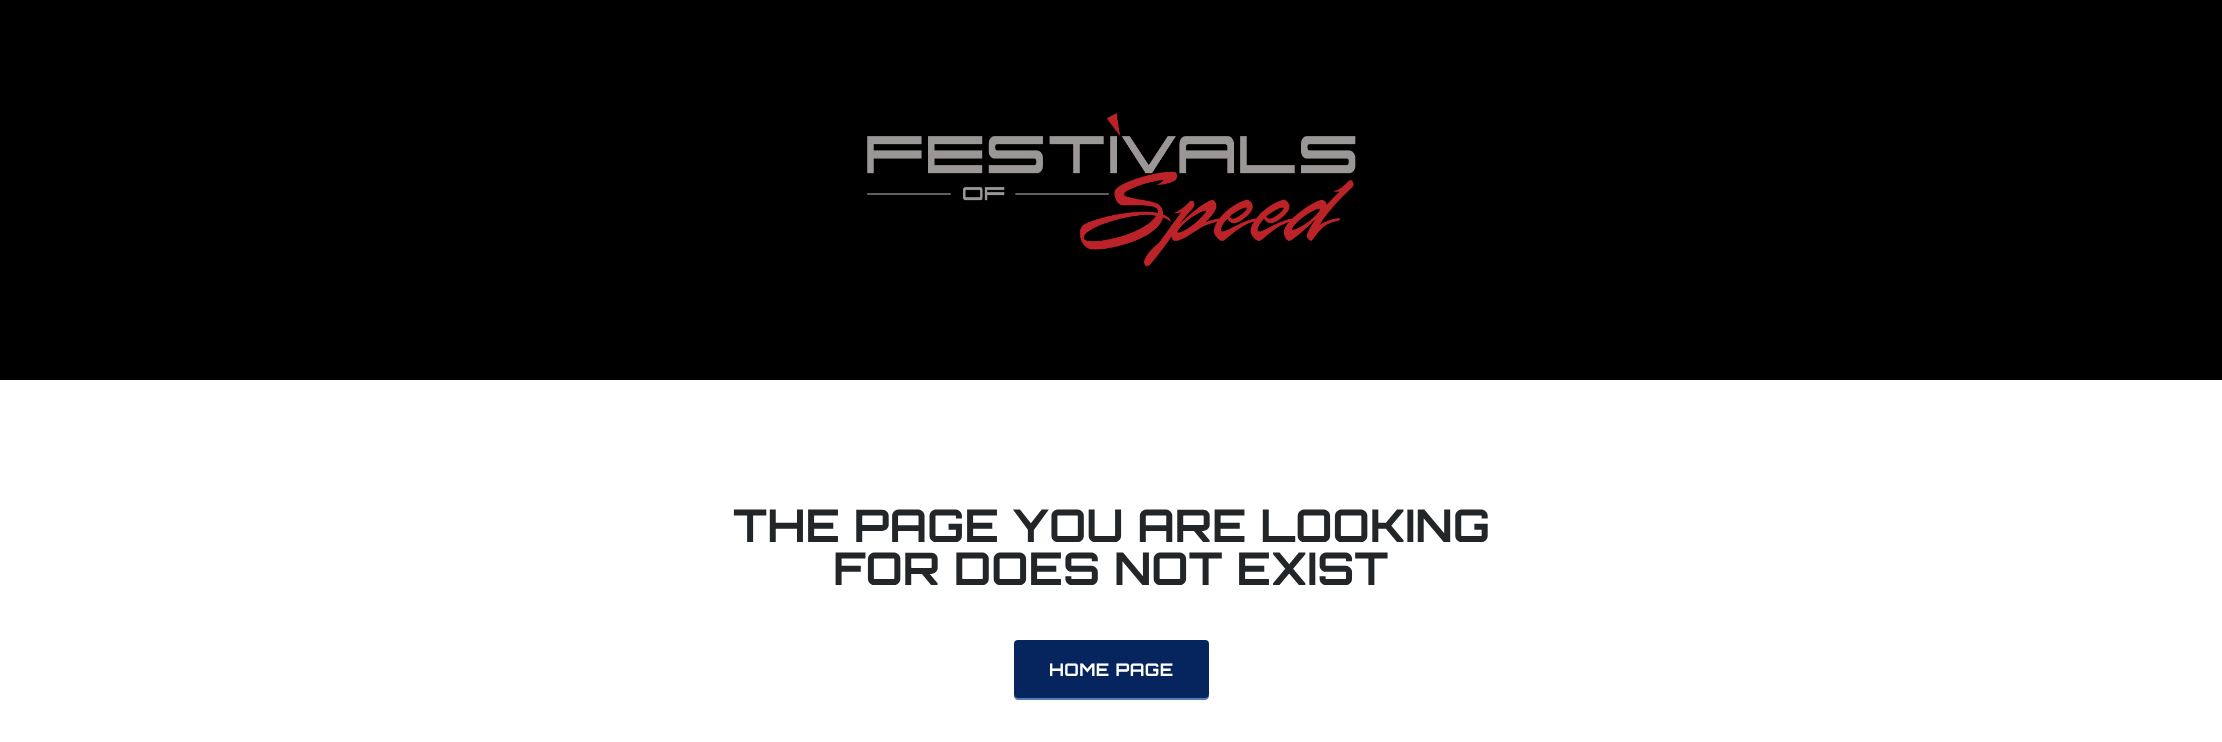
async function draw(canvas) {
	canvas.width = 2222;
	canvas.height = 742;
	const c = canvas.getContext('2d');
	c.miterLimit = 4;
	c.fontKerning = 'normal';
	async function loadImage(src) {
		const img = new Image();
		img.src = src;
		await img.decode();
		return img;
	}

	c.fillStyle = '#fff';
	c.fillRect(0, 0, 2222, 742);
	c.fillStyle = '#000';
	c.fillRect(0, 0, 2222, 380);
	c.drawImage(await loadImage('img1.png'), 867, 113, 489, 154);
	c.font = 'bold 45px Orbitron';
	c.fillStyle = '#232628';
	c.fillText('THE PAGE YOU ARE LOOKING', 733, 542);
	c.fillText('FOR DOES NOT EXIST', 833, 585);
	c.fillStyle = '#567ab4';
	c.beginPath();
	c.moveTo(1014, 695);
	c.lineTo(1014, 696);
	c.bezierCurveTo(1014, 698, 1016, 700, 1018, 700);
	c.lineTo(1205, 700);
	c.bezierCurveTo(1207, 700, 1209, 698, 1209, 696);
	c.lineTo(1209, 646);
	c.lineTo(1209, 694);
	c.bezierCurveTo(1209, 696, 1207, 698, 1205, 698);
	c.lineTo(1018, 698);
	c.bezierCurveTo(1016, 698, 1015, 697, 1014, 695);
	c.closePath();
	c.fill();
	c.fillStyle = '#06245d';
	c.beginPath();
	c.roundRect(1014, 640, 195, 58, 4);
	c.fill();
	c.letterSpacing = '0.4px';
	c.font = 'bold 17.5px Orbitron';
	c.fillStyle = '#fff';
	c.fillText('HOME PAGE', 1049, 676);
}

draw(document.querySelector('canvas'));
